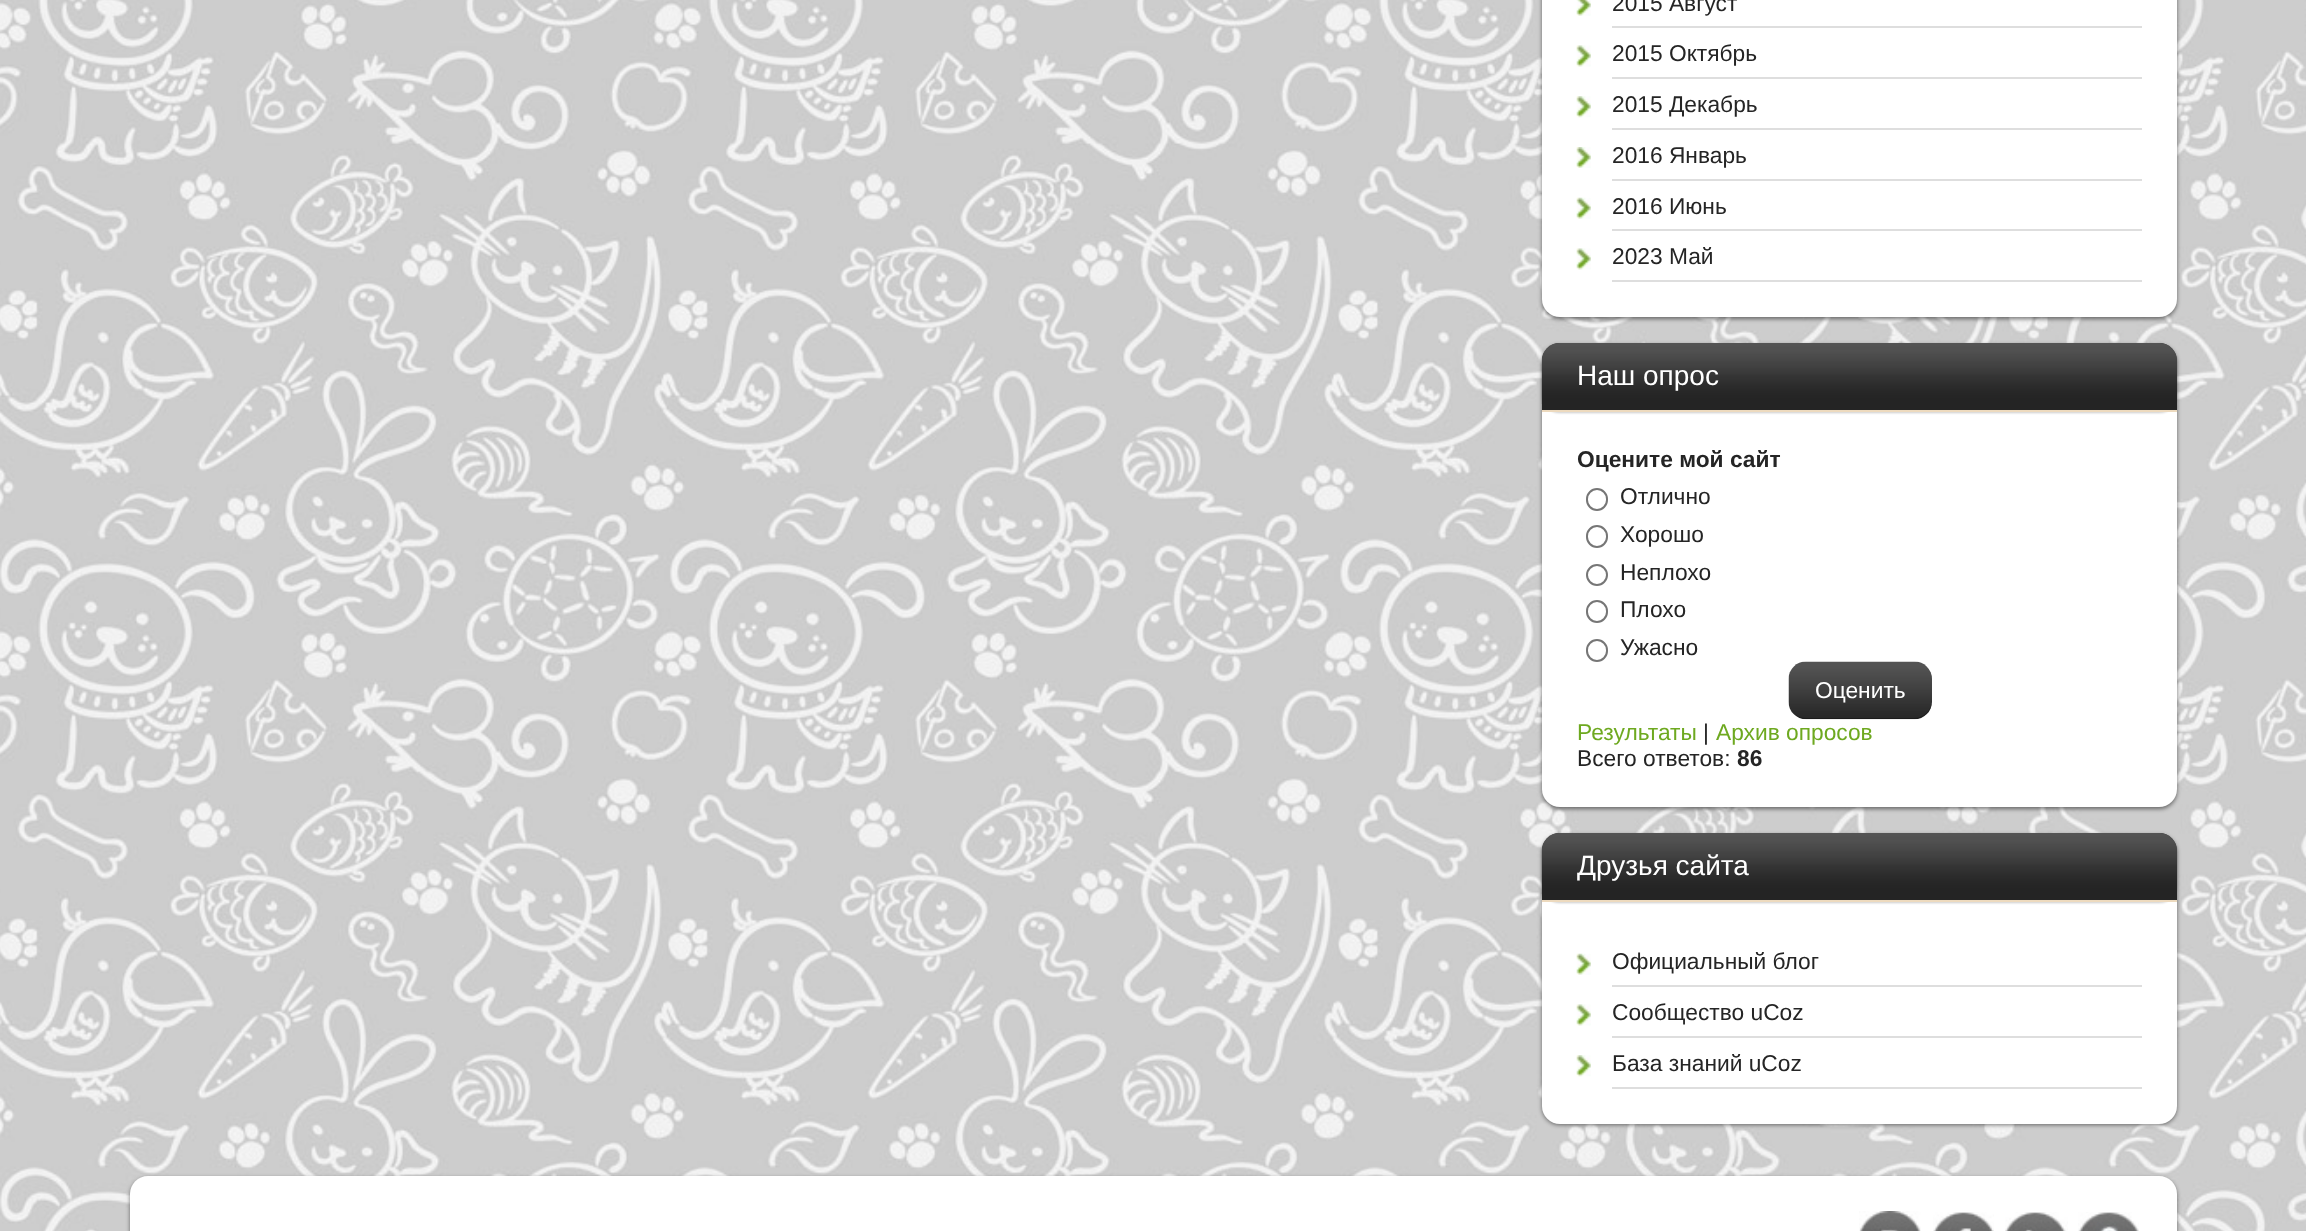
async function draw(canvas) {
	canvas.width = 2306;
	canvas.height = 1231;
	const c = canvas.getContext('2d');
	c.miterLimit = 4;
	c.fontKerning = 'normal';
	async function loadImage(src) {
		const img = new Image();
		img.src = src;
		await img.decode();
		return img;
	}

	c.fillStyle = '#fff';
	c.fillRect(0, 0, 2306, 1231);
	c.drawImage(await loadImage('img1.png'), 0, 0, 2306, 1231);
	c.fillStyle = '#00000080';
	c.filter = 'blur(2px)';
	c.beginPath();
	c.roundRect(1542, -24, 635, 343, 18);
	c.fill();
	c.filter = 'none';
	c.fillStyle = '#fff';
	c.beginPath();
	c.roundRect(1542, -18, 635, 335, 18);
	c.fill();
	c.drawImage(await loadImage('img2.png'), 1576, 0, 15, 16);
	c.font = '22.75px Liberation Sans';
	c.fillStyle = '#252525';
	c.fillText('2015 Август', 1612, 11);
	c.fillStyle = '#dedede';
	c.fillRect(1612, 26, 530, 2);
	c.drawImage(await loadImage('img3.png'), 1576, 45, 15, 22);
	c.fillStyle = '#252525';
	c.fillText('2015 Октябрь', 1612, 61);
	c.fillStyle = '#dedede';
	c.fillRect(1612, 77, 530, 2);
	c.drawImage(await loadImage('img4.png'), 1576, 96, 15, 22);
	c.fillStyle = '#252525';
	c.fillText('2015 Декабрь', 1612, 112);
	c.fillStyle = '#dedede';
	c.fillRect(1612, 128, 530, 2);
	c.drawImage(await loadImage('img5.png'), 1576, 147, 15, 21);
	c.fillStyle = '#252525';
	c.fillText('2016 Январь', 1612, 163);
	c.fillStyle = '#dedede';
	c.fillRect(1612, 179, 530, 2);
	c.drawImage(await loadImage('img6.png'), 1576, 197, 15, 22);
	c.fillStyle = '#252525';
	c.fillText('2016 Июнь', 1612, 214);
	c.fillStyle = '#dedede';
	c.fillRect(1612, 229, 530, 2);
	c.drawImage(await loadImage('img3.png'), 1576, 248, 15, 22);
	c.fillStyle = '#252525';
	c.fillText('2023 Май', 1612, 264);
	c.fillStyle = '#dedede';
	c.fillRect(1612, 280, 530, 2);
	c.fillStyle = '#00000080';
	c.filter = 'blur(2px)';
	c.beginPath();
	c.roundRect(1542, 345, 635, 464, 18);
	c.fill();
	c.filter = 'none';
	c.fillStyle = '#fff';
	c.beginPath();
	c.roundRect(1542, 343, 635, 464, 18);
	c.fill();
	c.fillStyle = '#00000033';
	c.filter = 'blur(1px)';
	c.beginPath();
	c.roundRect(1542, 345, 635, 68, 18);
	c.fill();
	c.filter = 'none';
	c.fillStyle = '#242424';
	c.beginPath();
	c.roundRect(1542, 343, 635, 68, [18, 18, 0, 0]);
	c.fill();
	c.drawImage(await loadImage('img7.png'), 1541, 343, 636, 61);
	c.fillStyle = '#eddabe';
	c.fillRect(1542, 410, 635, 2);
	c.font = '28px Liberation Sans';
	c.fillStyle = '#fff';
	c.fillText('Наш опрос', 1577, 385);
	c.font = 'bold 22.75px Liberation Sans';
	c.fillStyle = '#252525';
	c.fillText('Оцените мой сайт', 1577, 467);
	c.beginPath();
	c.roundRect(1587, 489, 20, 21, 10);
	c.strokeStyle = '#767676';
	c.lineWidth = 2;
	c.stroke();
	c.font = '22.75px Liberation Sans';
	c.fillText('Отлично', 1620, 504);
	c.beginPath();
	c.roundRect(1587, 526, 20, 21, 10);
	c.stroke();
	c.fillText('Хорошо', 1620, 542);
	c.beginPath();
	c.arc(1597, 575, 10, 0, 2 * Math.PI);
	c.stroke();
	c.fillText('Неплохо', 1620, 580);
	c.beginPath();
	c.roundRect(1587, 601, 20, 21, 10);
	c.stroke();
	c.fillText('Плохо', 1620, 617);
	c.beginPath();
	c.roundRect(1587, 640, 20, 21, 10);
	c.stroke();
	c.fillText('Ужасно', 1620, 655);
	c.drawImage(await loadImage('img8.png'), 1788, 661, 144, 59);
	c.fillStyle = '#0000004d';
	c.beginPath();
	c.moveTo(1794, 714);
	c.bezierCurveTo(1797, 717, 1802, 719, 1807, 719);
	c.lineTo(1914, 719);
	c.bezierCurveTo(1924, 719, 1932, 711, 1932, 701);
	c.lineTo(1932, 700);
	c.bezierCurveTo(1932, 710, 1924, 718, 1914, 718);
	c.lineTo(1806, 718);
	c.bezierCurveTo(1801, 718, 1797, 716, 1794, 714);
	c.closePath();
	c.fill();
	c.fillStyle = '#fff';
	c.fillText('Оценить', 1815, 698);
	c.fillStyle = '#6ea920';
	c.fillText('Результаты', 1577, 740);
	c.fillStyle = '#252525';
	c.fillText('|', 1703, 740);
	c.fillStyle = '#6ea920';
	c.fillText('Архив опросов', 1716, 740);
	c.fillStyle = '#252525';
	c.fillText('Всего ответов:', 1577, 766);
	c.font = 'bold 22.75px Liberation Sans';
	c.fillText('86', 1737, 766);
	c.fillStyle = '#00000080';
	c.filter = 'blur(2px)';
	c.beginPath();
	c.roundRect(1542, 835, 635, 290, 18);
	c.fill();
	c.filter = 'none';
	c.fillStyle = '#fff';
	c.beginPath();
	c.roundRect(1542, 833, 635, 291, 18);
	c.fill();
	c.fillStyle = '#00000033';
	c.filter = 'blur(1px)';
	c.beginPath();
	c.roundRect(1542, 835, 635, 68, 18);
	c.fill();
	c.filter = 'none';
	c.fillStyle = '#242424';
	c.beginPath();
	c.roundRect(1542, 833, 635, 68, [18, 18, 0, 0]);
	c.fill();
	c.drawImage(await loadImage('img9.png'), 1541, 833, 636, 61);
	c.fillStyle = '#eddabe';
	c.fillRect(1542, 900, 635, 2);
	c.font = '28px Liberation Sans';
	c.fillStyle = '#fff';
	c.fillText('Друзья сайта', 1577, 875);
	c.drawImage(await loadImage('img6.png'), 1576, 953, 15, 22);
	c.font = '22.75px Liberation Sans';
	c.fillStyle = '#252525';
	c.fillText('Официальный блог', 1612, 969);
	c.fillStyle = '#dedede';
	c.fillRect(1612, 985, 530, 2);
	c.drawImage(await loadImage('img3.png'), 1576, 1004, 15, 22);
	c.fillStyle = '#252525';
	c.fillText('Сообщество uCoz', 1612, 1020);
	c.fillStyle = '#dedede';
	c.fillRect(1612, 1036, 530, 2);
	c.drawImage(await loadImage('img4.png'), 1576, 1055, 15, 22);
	c.fillStyle = '#252525';
	c.fillText('База знаний uCoz', 1612, 1071);
	c.fillStyle = '#dedede';
	c.fillRect(1612, 1087, 530, 2);
	c.fillStyle = '#00000080';
	c.filter = 'blur(2px)';
	c.beginPath();
	c.roundRect(130, 1178, 2047, 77, 18);
	c.fill();
	c.filter = 'none';
	c.fillStyle = '#fff';
	c.beginPath();
	c.moveTo(148, 1176);
	c.lineTo(2159, 1176);
	c.bezierCurveTo(2169, 1176, 2177, 1184, 2177, 1194);
	c.lineTo(2177, 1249);
	c.lineTo(130, 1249);
	c.lineTo(130, 1194);
	c.bezierCurveTo(130, 1184, 138, 1176, 148, 1176);
	c.closePath();
	c.fill();
	c.drawImage(await loadImage('img10.png'), 1859, 1211, 62, 20);
	c.drawImage(await loadImage('img11.png'), 1933, 1212, 61, 19);
	c.drawImage(await loadImage('img12.png'), 2005, 1212, 63, 19);
	c.drawImage(await loadImage('img13.png'), 2078, 1212, 61, 19);
}

draw(document.querySelector('canvas'));
